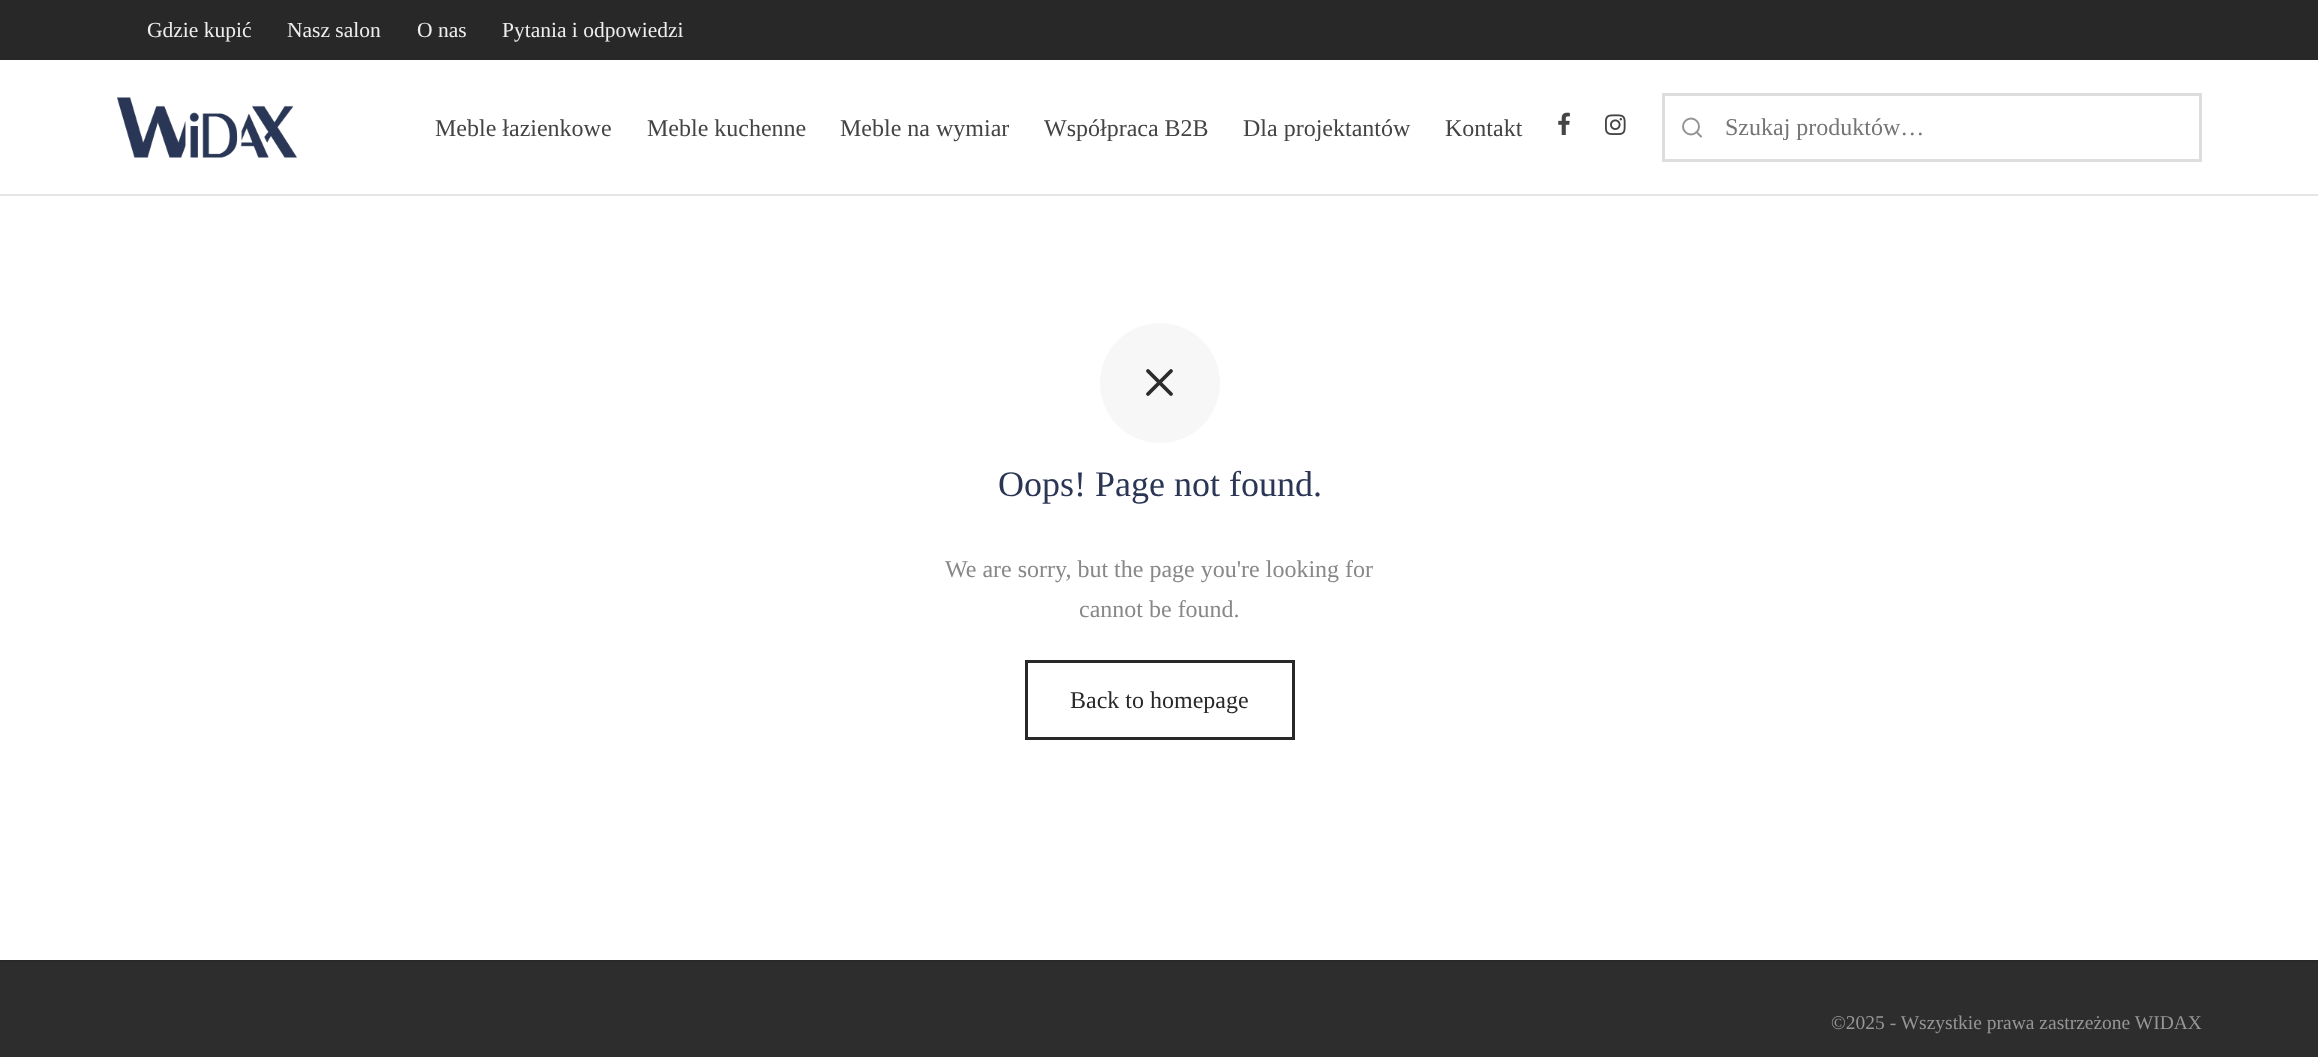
async function draw(canvas) {
	canvas.width = 2318;
	canvas.height = 1057;
	const c = canvas.getContext('2d');
	c.miterLimit = 4;
	c.fontKerning = 'normal';
	async function loadImage(src) {
		const img = new Image();
		img.src = src;
		await img.decode();
		return img;
	}

	c.fillStyle = '#fff';
	c.fillRect(0, 0, 2318, 1057);
	c.fillStyle = '#282828';
	c.fillRect(0, 0, 2318, 60);
	c.font = '21.5px Liberation Serif';
	c.fillStyle = '#eee';
	for (const [text, x, y] of [
		['Gdzie kupić', 147, 37],
		['Nasz salon', 287, 37],
		['O nas', 417, 37],
		['Pytania i odpowiedzi', 502, 37],
	]) {
		c.fillText(text, x, y);
	}
	c.drawImage(await loadImage('img1.png'), 117, 97, 180, 61);
	c.font = '24px Liberation Serif';
	c.fillStyle = '#444';
	for (const [text, x, y] of [
		['Meble łazienkowe', 435, 136],
		['Meble kuchenne', 647, 136],
		['Meble na wymiar', 840, 136],
		['Współpraca B2B', 1044, 136],
		['Dla projektantów', 1243, 136],
		['Kontakt', 1445, 136],
	]) {
		c.fillText(text, x, y);
	}
	c.drawImage(await loadImage('img2.png'), 1558, 112, 12, 23);
	c.drawImage(await loadImage('img3.png'), 1605, 114, 21, 21);
	c.strokeStyle = '#ddd';
	c.lineWidth = 3;
	c.strokeRect(1663.5, 94.5, 537, 66);
	c.beginPath();
	c.arc(1691, 126.5, 8, 0, 2 * Math.PI);
	c.strokeStyle = '#949494';
	c.lineWidth = 2;
	c.stroke();
	c.beginPath();
	c.moveTo(1701, 136.5);
	c.lineTo(1696.5, 132);
	c.lineCap = 'round';
	c.lineJoin = 'round';
	c.stroke();
	c.fillStyle = '#757575';
	c.fillText('Szukaj produktów…', 1725, 135);
	c.fillStyle = '#e6e6e6';
	c.fillRect(0, 194, 2318, 2);
	c.fillStyle = '#f7f7f7';
	c.beginPath();
	c.arc(1160, 383, 60, 0, 2 * Math.PI);
	c.fill();
	c.beginPath();
	c.moveTo(1171, 371);
	c.lineTo(1148, 394);
	c.moveTo(1148, 371);
	c.lineTo(1171, 394);
	c.strokeStyle = '#2b2b2b';
	c.lineWidth = 3.8;
	c.stroke();
	c.font = '36px Liberation Serif';
	c.fillStyle = '#2a3654';
	c.fillText('Oops! Page not found.', 998, 496);
	c.font = '24px Liberation Serif';
	c.fillStyle = '#888';
	c.fillText('We are sorry, but the page you\'re looking for', 945, 577);
	c.fillText('cannot be found.', 1079, 617);
	c.strokeStyle = '#282828';
	c.lineWidth = 3;
	c.lineJoin = 'miter';
	c.strokeRect(1026.5, 661.5, 267, 77);
	c.fillStyle = '#282828';
	c.fillText('Back to homepage', 1070, 708);
	c.fillStyle = '#2d2d2d';
	c.fillRect(0, 962, 2318, 95);
	c.fillStyle = '#292929';
	c.fillRect(0, 960, 2318, 2);
	c.font = '19.5px Liberation Serif';
	c.fillStyle = '#969696';
	c.fillText('©2025 - Wszystkie prawa zastrzeżone WIDAX', 1831, 1029);
}

draw(document.querySelector('canvas'));
